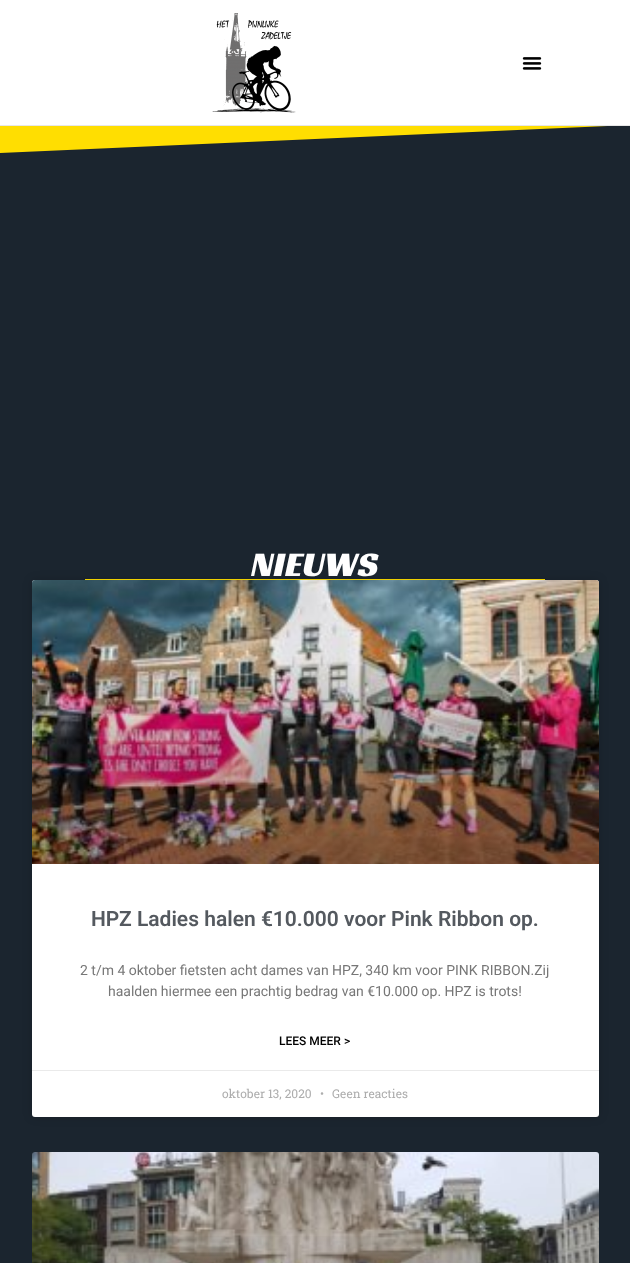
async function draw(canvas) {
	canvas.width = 630;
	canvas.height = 1263;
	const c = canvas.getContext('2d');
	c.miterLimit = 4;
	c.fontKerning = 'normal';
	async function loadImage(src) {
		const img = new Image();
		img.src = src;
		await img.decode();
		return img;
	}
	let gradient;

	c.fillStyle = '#1b252f';
	c.fillRect(0, 0, 630, 1263);
	c.fillStyle = '#ffde01';
	c.beginPath();
	c.moveTo(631, 125);
	c.lineTo(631, 123);
	c.lineTo(-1, 123);
	c.lineTo(-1, 153);
	c.closePath();
	c.fill();
	c.fillStyle = '#fff';
	c.fillRect(0, 0, 630, 125);
	c.fillStyle = '#e7e7e7';
	c.fillRect(0, 125, 630, 1);
	c.drawImage(await loadImage('img1.png'), 212, 13, 84, 100);
	c.drawImage(await loadImage('img2.png'), 522, 57, 20, 13);
	c.font = '35px Racing Sans One';
	c.fillStyle = '#fff';
	c.fillText('NIEUWS', 251, 576);
	c.fillStyle = '#ffde01';
	c.fillRect(85, 579, 460, 1);
	c.fillStyle = '#00000026';
	c.filter = 'blur(5px)';
	c.beginPath();
	c.roundRect(32, 580, 567, 537, 3);
	c.fill();
	c.filter = 'none';
	c.fillStyle = '#fff';
	c.beginPath();
	c.roundRect(32, 580, 567, 537, 3);
	c.fill();
	c.drawImage(await loadImage('img3.png'), 32, 580, 567, 284);
	gradient = c.createLinearGradient(316, 864, 316, 580);
	gradient.addColorStop(0, '#00000059');
	gradient.addColorStop(0.75, '#00000000');
	c.fillStyle = gradient;
	c.fillRect(32, 664, 567, 200);
	c.font = '600 21px Roboto';
	c.fillStyle = '#54595f';
	c.fillText('HPZ Ladies halen €10.000 voor Pink Ribbon op.', 91, 926);
	c.font = '14px Roboto';
	c.fillStyle = '#777';
	c.fillText('2 t/m 4 oktober fietsten acht dames van HPZ, 340 km voor PINK RIBBON.Zij', 80, 975);
	c.fillText('haalden hiermee een prachtig bedrag van €10.000 op. HPZ is trots!', 108, 996);
	c.font = '500 12px Roboto';
	c.fillStyle = '#000';
	c.fillText('LEES MEER >', 279, 1045);
	c.fillStyle = '#eaeaea';
	c.fillRect(32, 1070, 567, 1);
	c.font = '12px Roboto Slab';
	c.fillStyle = '#adadad';
	for (const [text, x, y] of [
		['oktober 13, 2020', 222, 1098],
		['•', 320, 1098],
		['Geen reacties', 332, 1098],
	]) {
		c.fillText(text, x, y);
	}
	c.drawImage(await loadImage('img4.png'), 32, 1152, 567, 111);
	gradient = c.createLinearGradient(316, 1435, 316, 1152);
	gradient.addColorStop(0, '#00000059');
	gradient.addColorStop(0.75, '#00000000');
	c.fillStyle = gradient;
	c.fillRect(32, 1236, 567, 27);
}

draw(document.querySelector('canvas'));
